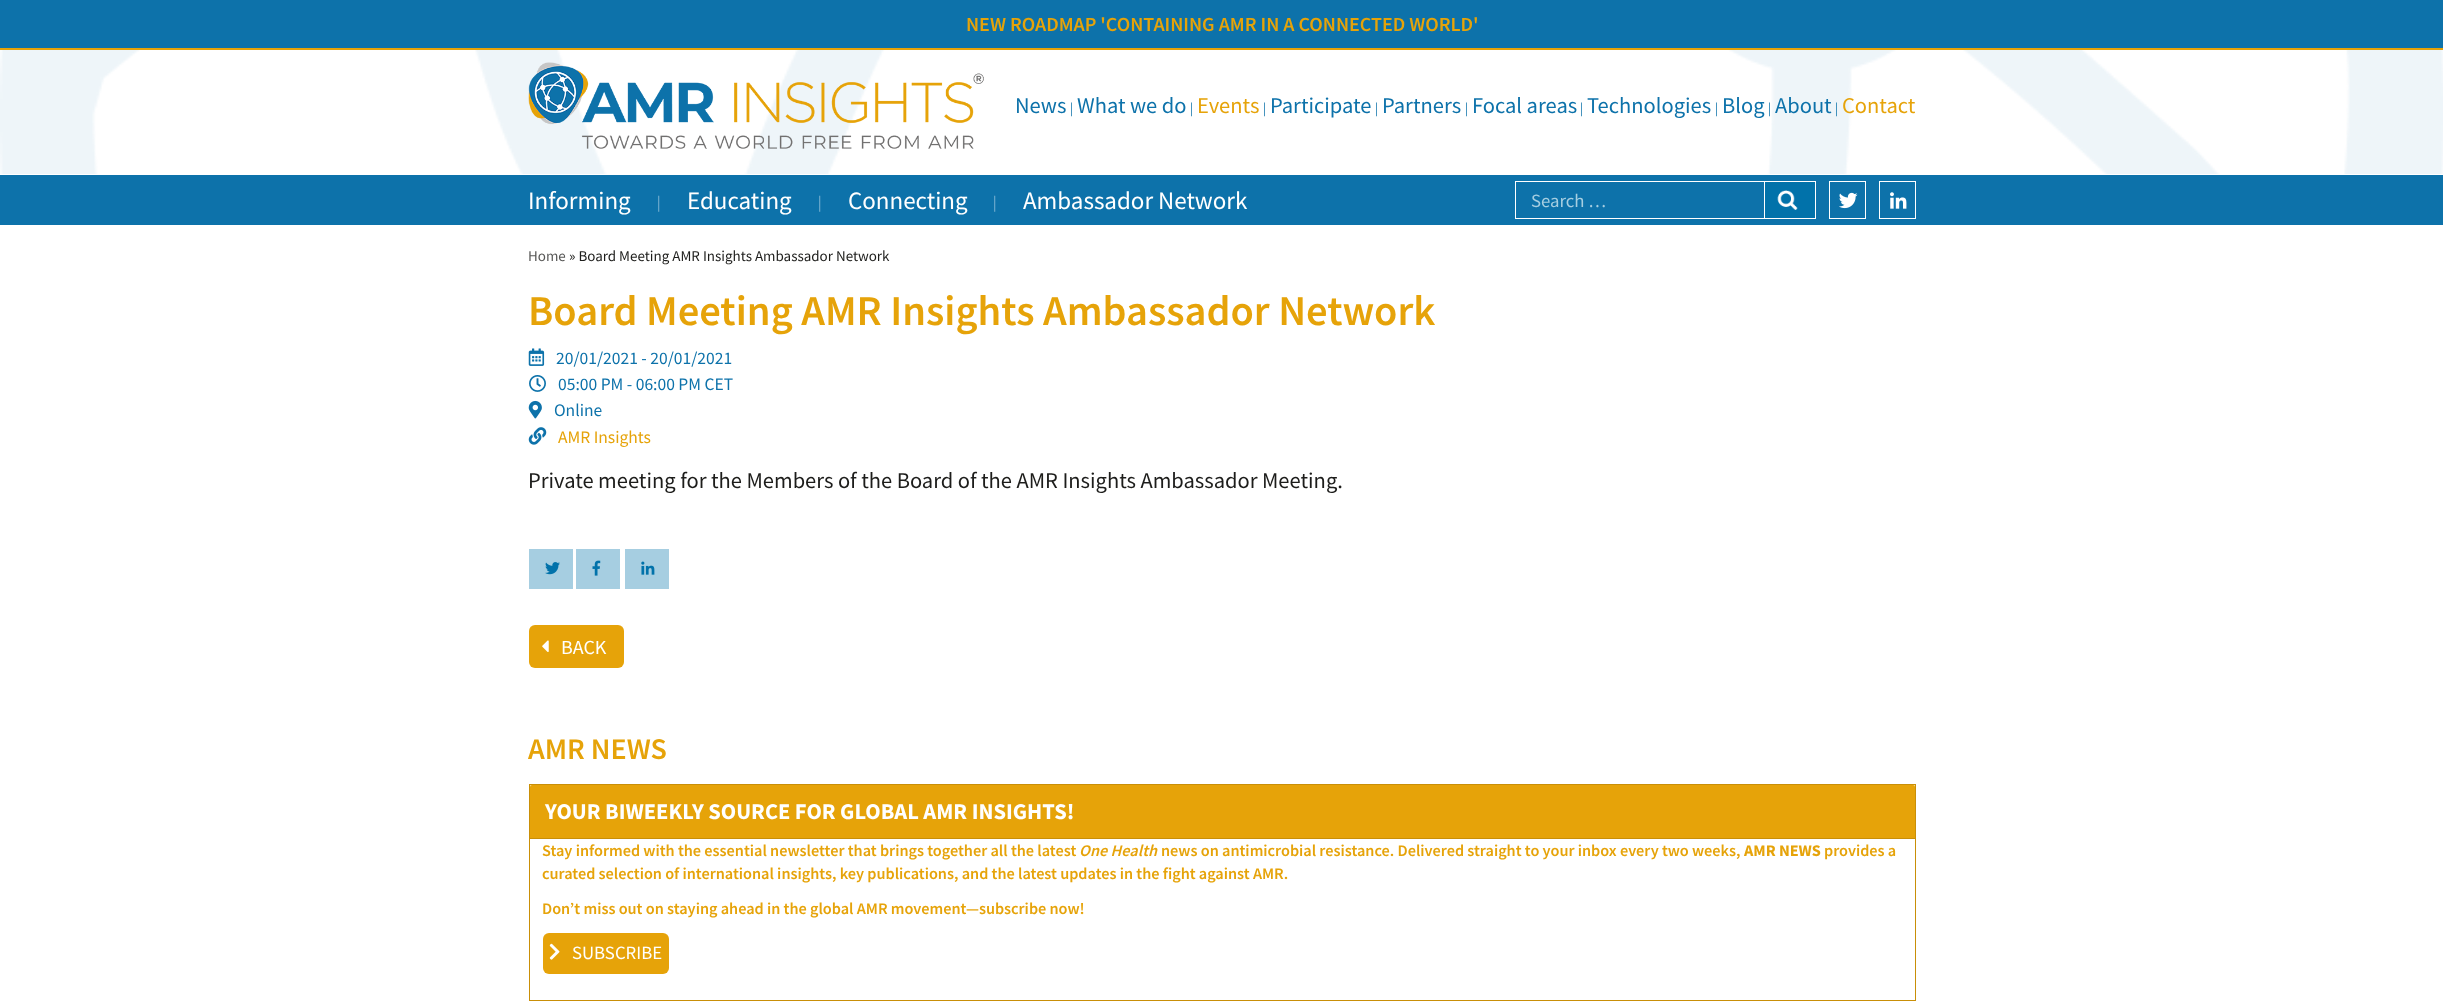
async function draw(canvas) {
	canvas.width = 2443;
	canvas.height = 1004;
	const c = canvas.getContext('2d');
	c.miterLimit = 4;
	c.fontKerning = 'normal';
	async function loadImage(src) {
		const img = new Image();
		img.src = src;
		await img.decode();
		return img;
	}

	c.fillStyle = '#fff';
	c.fillRect(0, 0, 2443, 1004);
	c.fillStyle = '#e6a309';
	c.fillRect(0, 48, 2443, 2);
	c.fillStyle = '#0d72aa';
	c.fillRect(0, 0, 2443, 48);
	c.font = '600 20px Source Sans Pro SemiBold';
	c.fillStyle = '#e6a309';
	c.fillText('NEW ROADMAP \'CONTAINING AMR IN A CONNECTED WORLD\'', 966, 31);
	c.drawImage(await loadImage('img1.png'), 0, 50, 2443, 124);
	c.drawImage(await loadImage('img2.png'), 528, 62, 456, 87);
	c.font = '22.5px Source Sans Pro';
	c.fillStyle = '#0d72aa';
	c.fillText('News', 1015, 113);
	c.font = '15px Liberation Serif';
	c.fillText('|', 1070, 113);
	c.font = '22.5px Source Sans Pro';
	c.fillText('What we do', 1077, 113);
	c.font = '15px Liberation Serif';
	c.fillText('|', 1190, 113);
	c.font = '22.5px Source Sans Pro';
	c.fillStyle = '#e6a309';
	c.fillText('Events', 1197, 113);
	c.font = '15px Liberation Serif';
	c.fillStyle = '#0d72aa';
	c.fillText('|', 1263, 113);
	c.font = '22.5px Source Sans Pro';
	c.fillText('Participate', 1270, 113);
	c.font = '15px Liberation Serif';
	c.fillText('|', 1375, 113);
	c.font = '22.5px Source Sans Pro';
	c.fillText('Partners', 1382, 113);
	c.font = '15px Liberation Serif';
	c.fillText('|', 1465, 113);
	c.font = '22.5px Source Sans Pro';
	c.fillText('Focal areas', 1472, 113);
	c.font = '15px Liberation Serif';
	c.fillText('|', 1580, 113);
	c.font = '22.5px Source Sans Pro';
	c.fillText('Technologies', 1587, 113);
	c.font = '15px Liberation Serif';
	c.fillText('|', 1715, 113);
	c.font = '22.5px Source Sans Pro';
	c.fillText('Blog', 1722, 113);
	c.font = '15px Liberation Serif';
	c.fillText('|', 1768, 113);
	c.font = '22.5px Source Sans Pro';
	c.fillText('About', 1775, 113);
	c.font = '15px Liberation Serif';
	c.fillText('|', 1835, 113);
	c.font = '22.5px Source Sans Pro';
	c.fillStyle = '#e6a309';
	c.fillText('Contact', 1842, 113);
	c.fillStyle = '#0d72aa';
	c.fillRect(0, 175, 2443, 50);
	c.font = '25px Source Sans Pro';
	c.fillStyle = '#fff';
	c.fillText('Informing', 528, 209);
	c.font = '17.5px Liberation Serif';
	c.fillStyle = '#86b9d5';
	c.fillText('|', 657, 208);
	c.font = '25px Source Sans Pro';
	c.fillStyle = '#fff';
	c.fillText('Educating', 687, 209);
	c.font = '17.5px Liberation Serif';
	c.fillStyle = '#86b9d5';
	c.fillText('|', 818, 208);
	c.font = '25px Source Sans Pro';
	c.fillStyle = '#fff';
	c.fillText('Connecting', 848, 209);
	c.font = '17.5px Liberation Serif';
	c.fillStyle = '#86b9d5';
	c.fillText('|', 993, 208);
	c.font = '25px Source Sans Pro';
	c.fillStyle = '#fff';
	c.fillText('Ambassador Network', 1023, 209);
	c.strokeStyle = '#fff';
	c.strokeRect(1515.5, 181.5, 249, 37);
	c.font = '18.75px Source Sans Pro';
	c.fillStyle = '#a6cee1';
	c.fillText('Search …', 1531, 207);
	c.fillStyle = '#0172aa';
	c.fillRect(1765, 182, 50, 36);
	c.drawImage(await loadImage('img3.png'), 1777, 190, 21, 20);
	c.strokeRect(1764.5, 181.5, 51, 37);
	c.strokeRect(1829.5, 181.5, 36, 37);
	c.drawImage(await loadImage('img4.png'), 1839, 192, 19, 17);
	c.strokeRect(1879.5, 181.5, 36, 37);
	c.drawImage(await loadImage('img5.png'), 1890, 192, 17, 17);
	c.font = '15px Source Sans Pro';
	c.fillStyle = '#575756';
	c.fillText('Home', 528, 261);
	c.fillStyle = '#1d1d1b';
	c.fillText('» Board Meeting AMR Insights Ambassador Network', 569, 261);
	c.font = '600 42.5px Source Sans Pro SemiBold';
	c.fillStyle = '#e6a309';
	c.fillText('Board Meeting AMR Insights Ambassador Network', 528, 325);
	c.drawImage(await loadImage('img6.png'), 528, 348, 17, 18);
	c.font = '17.5px Source Sans Pro';
	c.fillStyle = '#0d72aa';
	c.fillText('20/01/2021 - 20/01/2021', 556, 364);
	c.drawImage(await loadImage('img7.png'), 529, 375, 17, 17);
	c.fillText('05:00 PM - 06:00 PM CET', 558, 390);
	c.drawImage(await loadImage('img8.png'), 528, 400, 14, 19);
	c.fillText('Online', 554, 416);
	c.drawImage(await loadImage('img9.png'), 528, 427, 19, 18);
	c.fillStyle = '#e6a309';
	c.fillText('AMR Insights', 558, 443);
	c.font = '22.5px Source Sans Pro';
	c.fillStyle = '#1d1d1b';
	c.fillText('Private meeting for the Members of the Board of the AMR Insights Ambassador Meeting.', 528, 488);
	c.fillStyle = '#a6cee1';
	c.fillRect(529, 549, 44, 40);
	c.drawImage(await loadImage('img10.png'), 545, 562, 15, 13);
	c.fillRect(576, 549, 44, 40);
	c.drawImage(await loadImage('img11.png'), 592, 560, 9, 16);
	c.fillRect(625, 549, 44, 40);
	c.drawImage(await loadImage('img12.png'), 641, 561, 14, 14);
	c.fillStyle = '#e6a309';
	c.beginPath();
	c.roundRect(529, 625, 95, 43, 6);
	c.fill();
	c.drawImage(await loadImage('img13.png'), 542, 640, 7, 12);
	c.font = '20px Source Sans Pro';
	c.fillStyle = '#fff';
	c.fillText('BACK', 561, 654);
	c.font = '600 30px Source Sans Pro SemiBold';
	c.fillStyle = '#e6a309';
	c.fillText('AMR NEWS', 528, 759);
	c.fillStyle = '#f9e9c2';
	c.fillRect(530, 785, 1385, 2);
	c.strokeStyle = '#c98f08';
	c.strokeRect(529.5, 784.5, 1386, 216);
	c.fillStyle = '#e6a309';
	c.beginPath();
	c.roundRect(530, 785, 1385, 54, [2, 2, 0, 0]);
	c.fill();
	c.fillStyle = '#c98f08';
	c.fillRect(530, 838, 1385, 1);
	c.font = 'bold 22.5px Source Sans Pro';
	c.fillStyle = '#fff';
	c.fillText('YOUR BIWEEKLY SOURCE FOR GLOBAL AMR INSIGHTS!', 545, 819);
	c.font = '600 16.25px Source Sans Pro SemiBold';
	c.fillStyle = '#e6a309';
	c.fillText('Stay informed with the essential newsletter that brings together all the latest', 542, 856);
	c.font = 'italic 600 16.25px Source Sans Pro SemiBold';
	c.fillText('One Health', 1079, 856);
	c.font = '600 16.25px Source Sans Pro SemiBold';
	c.fillText('news on antimicrobial resistance. Delivered straight to your inbox every two weeks,', 1161, 856);
	c.font = 'bold 16.25px Source Sans Pro';
	c.fillText('AMR NEWS', 1744, 856);
	c.font = '600 16.25px Source Sans Pro SemiBold';
	for (const [text, x, y] of [
		['provides a', 1824, 856],
		['curated selection of international insights, key publications, and the latest updates in the fight against AMR.', 542, 879],
		['Don’t miss out on staying ahead in the global AMR movement—subscribe now!', 542, 914],
	]) {
		c.fillText(text, x, y);
	}
	c.beginPath();
	c.roundRect(543, 933, 126, 41, 6);
	c.fill();
	c.drawImage(await loadImage('img14.png'), 549, 943, 11, 17);
	c.font = '18.75px Source Sans Pro';
	c.fillStyle = '#fff';
	c.fillText('SUBSCRIBE', 572, 959);
}

draw(document.querySelector('canvas'));
